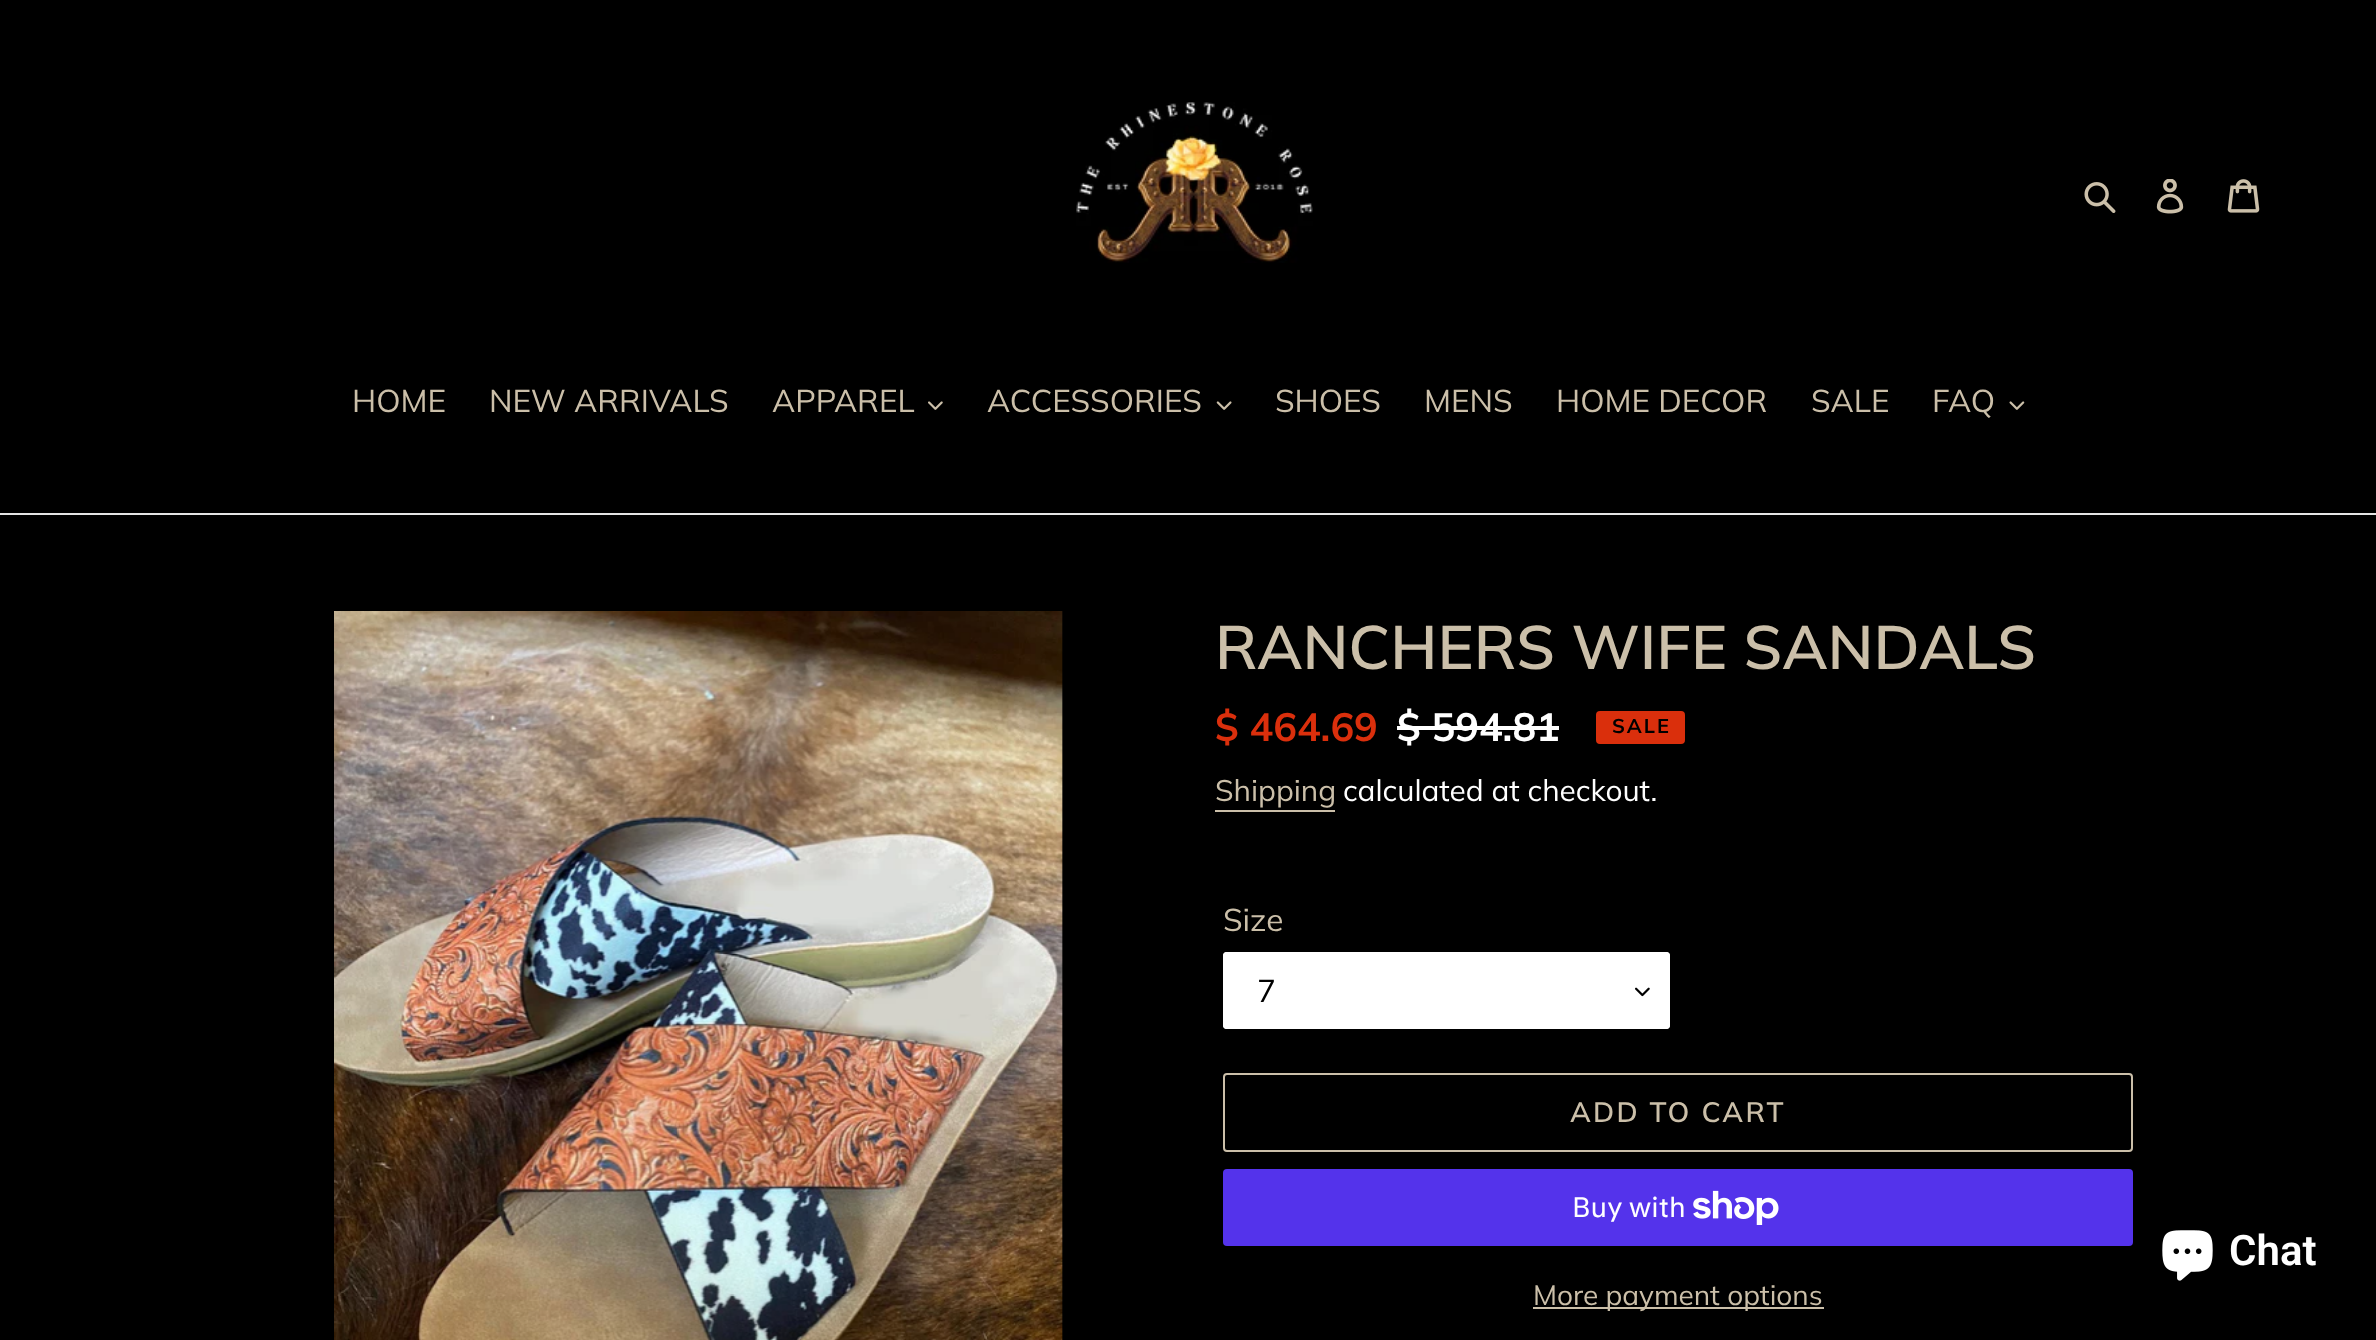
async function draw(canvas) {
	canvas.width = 2376;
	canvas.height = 1340;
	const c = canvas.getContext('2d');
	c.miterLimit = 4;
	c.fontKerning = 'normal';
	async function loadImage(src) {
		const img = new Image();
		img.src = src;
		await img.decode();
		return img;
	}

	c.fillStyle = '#000';
	c.fillRect(0, 0, 2376, 1340);
	c.drawImage(await loadImage('img1.png'), 1076, 102, 237, 161);
	c.drawImage(await loadImage('img2.png'), 2084, 182, 32, 31);
	c.drawImage(await loadImage('img3.png'), 2156, 179, 28, 35);
	c.drawImage(await loadImage('img4.png'), 2227, 179, 33, 34);
	c.fillStyle = '#e4e4e4';
	c.fillRect(0, 513, 2376, 2);
	c.font = '31.5px Muli';
	c.fillStyle = '#cbbfa9';
	for (const [text, x, y] of [
		['HOME', 352, 412],
		['NEW ARRIVALS', 489, 412],
		['APPAREL', 772, 412],
	]) {
		c.fillText(text, x, y);
	}
	c.drawImage(await loadImage('img5.png'), 928, 401, 15, 9);
	c.fillText('ACCESSORIES', 987, 412);
	c.drawImage(await loadImage('img6.png'), 1216, 401, 16, 9);
	for (const [text, x, y] of [
		['SHOES', 1275, 412],
		['MENS', 1424, 412],
		['HOME DECOR', 1556, 412],
		['SALE', 1811, 412],
		['FAQ', 1932, 412],
	]) {
		c.fillText(text, x, y);
	}
	c.drawImage(await loadImage('img7.png'), 2009, 401, 16, 9);
	c.drawImage(await loadImage('img8.png'), 334, 611, 729, 729);
	c.font = '600 61.25px Muli';
	c.fillText('RANCHERS WIFE SANDALS', 1215, 669);
	c.font = 'bold 39.5px Muli';
	c.fillStyle = '#da2f0c';
	c.fillText('$ 464.69', 1215, 741);
	c.fillStyle = '#fff';
	c.fillText('$ 594.81', 1397, 741);
	c.fillRect(1397, 726, 162, 4);
	c.fillStyle = '#da2f0c';
	c.beginPath();
	c.roundRect(1597, 712, 87, 31, 3);
	c.fill();
	c.strokeStyle = '#da2f0c';
	c.lineWidth = 2;
	c.stroke();
	c.letterSpacing = '2px';
	c.font = 'bold 20px Muli';
	c.fillStyle = '#000';
	c.fillText('SALE', 1612, 733);
	c.letterSpacing = '0px';
	c.font = '29.75px Muli';
	c.fillStyle = '#cbbfa9';
	c.fillText('Shipping', 1215, 801);
	c.fillRect(1215, 810, 120, 2);
	c.fillStyle = '#fff';
	c.fillText('calculated at checkout.', 1343, 801);
	c.font = '31.5px Muli';
	c.fillStyle = '#cbbfa9';
	c.fillText('Size', 1223, 931);
	c.fillStyle = '#fff';
	c.beginPath();
	c.roundRect(1223, 952, 447, 77, 4);
	c.fill();
	c.drawImage(await loadImage('img9.png'), 1635, 987, 15, 10);
	c.beginPath();
	c.roundRect(1224, 953, 445, 75, 3);
	c.strokeStyle = '#fff';
	c.stroke();
	c.fillStyle = '#000';
	c.fillText('7', 1257, 1002);
	c.beginPath();
	c.roundRect(1224, 1074, 908, 77, 3);
	c.strokeStyle = '#cbbfa9';
	c.stroke();
	c.letterSpacing = '2.25px';
	c.font = '600 28px Muli';
	c.fillStyle = '#cbbfa9';
	c.fillText('ADD TO CART', 1570, 1122);
	c.fillStyle = '#5433eb';
	c.beginPath();
	c.roundRect(1223, 1169, 910, 77, 4);
	c.fill();
	c.letterSpacing = '0px';
	c.font = '28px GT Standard';
	c.fillStyle = '#fff';
	c.fillText('Buy with', 1572, 1217);
	c.drawImage(await loadImage('img10.png'), 1693, 1190, 86, 35);
	c.fillStyle = '#cbbfa9';
	c.fillRect(1533, 1307, 291, 2);
	c.font = '28px Muli';
	c.fillText('More payment options', 1533, 1305);
	c.drawImage(await loadImage('img11.png'), 2162, 1230, 51, 51);
	c.font = '600 42px Roboto';
	c.fillStyle = '#fff';
	c.fillText('Chat', 2229, 1265);
}

draw(document.querySelector('canvas'));
